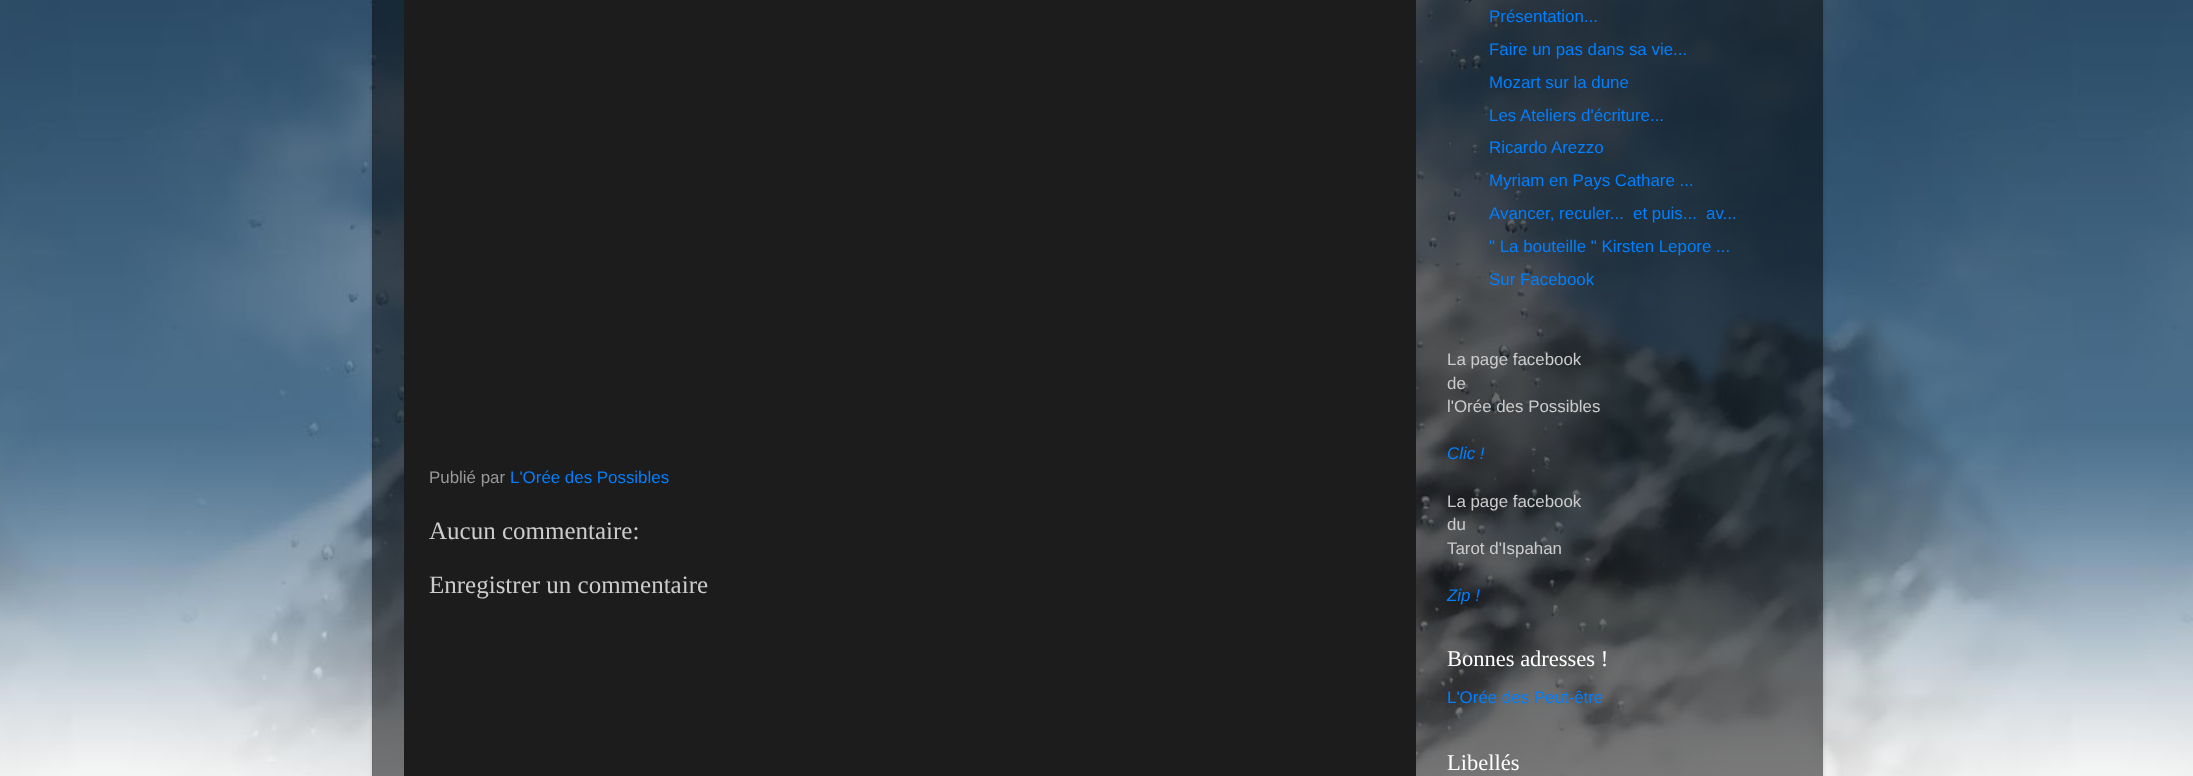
async function draw(canvas) {
	canvas.width = 2193;
	canvas.height = 776;
	const c = canvas.getContext('2d');
	c.miterLimit = 4;
	c.fontKerning = 'normal';
	async function loadImage(src) {
		const img = new Image();
		img.src = src;
		await img.decode();
		return img;
	}

	c.fillStyle = '#fff';
	c.fillRect(0, 0, 2193, 776);
	c.drawImage(await loadImage('img1.png'), 0, 0, 2193, 776);
	c.save();
	c.beginPath();
	c.moveTo(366, 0);
	c.lineTo(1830, 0);
	c.lineTo(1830, 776);
	c.lineTo(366, 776);
	c.closePath();
	c.moveTo(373, -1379);
	c.lineTo(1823, -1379);
	c.lineTo(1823, 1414);
	c.lineTo(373, 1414);
	c.closePath();
	c.clip('evenodd');
	c.fillStyle = '#00000026';
	c.filter = 'blur(2px)';
	c.beginPath();
	c.rect(373, -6, 1450, 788);
	c.fill();
	c.filter = 'none';
	c.restore();
	c.fillStyle = '#00000080';
	c.fillRect(372, 0, 1451, 776);
	c.fillStyle = '#1c1c1c';
	c.fillRect(404, 0, 1012, 776);
	c.font = '16.9px Liberation Sans';
	c.fillStyle = '#999';
	c.fillText('Publié par', 429, 483);
	c.fillStyle = '#007fff';
	c.fillText('L\'Orée des Possibles', 510, 483);
	c.font = '25px Liberation Serif';
	c.fillStyle = '#ccc';
	c.fillText('Aucun commentaire:', 429, 539);
	c.fillText('Enregistrer un commentaire', 429, 593);
	c.font = '16.9px Liberation Sans';
	c.fillStyle = '#007fff';
	for (const [text, x, y] of [
		['Présentation...', 1489, 22],
		['Faire un pas dans sa vie...', 1489, 55],
		['Mozart sur la dune', 1489, 88],
		['Les Ateliers d\'écriture...', 1489, 121],
		['Ricardo Arezzo', 1489, 153],
		['Myriam en Pays Cathare ...', 1489, 186],
		['Avancer, reculer...', 1489, 219],
		['et puis...', 1633, 219],
		['av...', 1706, 219],
		['" La bouteille " Kirsten Lepore ...', 1489, 252],
		['Sur Facebook', 1489, 285],
	]) {
		c.fillText(text, x, y);
	}
	c.fillStyle = '#ccc';
	for (const [text, x, y] of [
		['La page facebook', 1447, 365],
		['de', 1447, 389],
		['l\'Orée des Possibles', 1447, 412],
	]) {
		c.fillText(text, x, y);
	}
	c.font = 'italic 16.9px Liberation Sans';
	c.fillStyle = '#007fff';
	c.fillText('Clic !', 1447, 459);
	c.font = '16.9px Liberation Sans';
	c.fillStyle = '#ccc';
	for (const [text, x, y] of [
		['La page facebook', 1447, 507],
		['du', 1447, 530],
		['Tarot d\'Ispahan', 1447, 554],
	]) {
		c.fillText(text, x, y);
	}
	c.font = 'italic 16.9px Liberation Sans';
	c.fillStyle = '#007fff';
	c.fillText('Zip !', 1447, 601);
	c.font = '22.5px Liberation Serif';
	c.fillStyle = '#fff';
	c.fillText('Bonnes adresses !', 1447, 666);
	c.font = '16.9px Liberation Sans';
	c.fillStyle = '#007fff';
	c.fillText('L\'Orée des Peut-être', 1447, 703);
	c.font = '22.5px Liberation Serif';
	c.fillStyle = '#fff';
	c.fillText('Libellés', 1447, 770);
}

draw(document.querySelector('canvas'));
